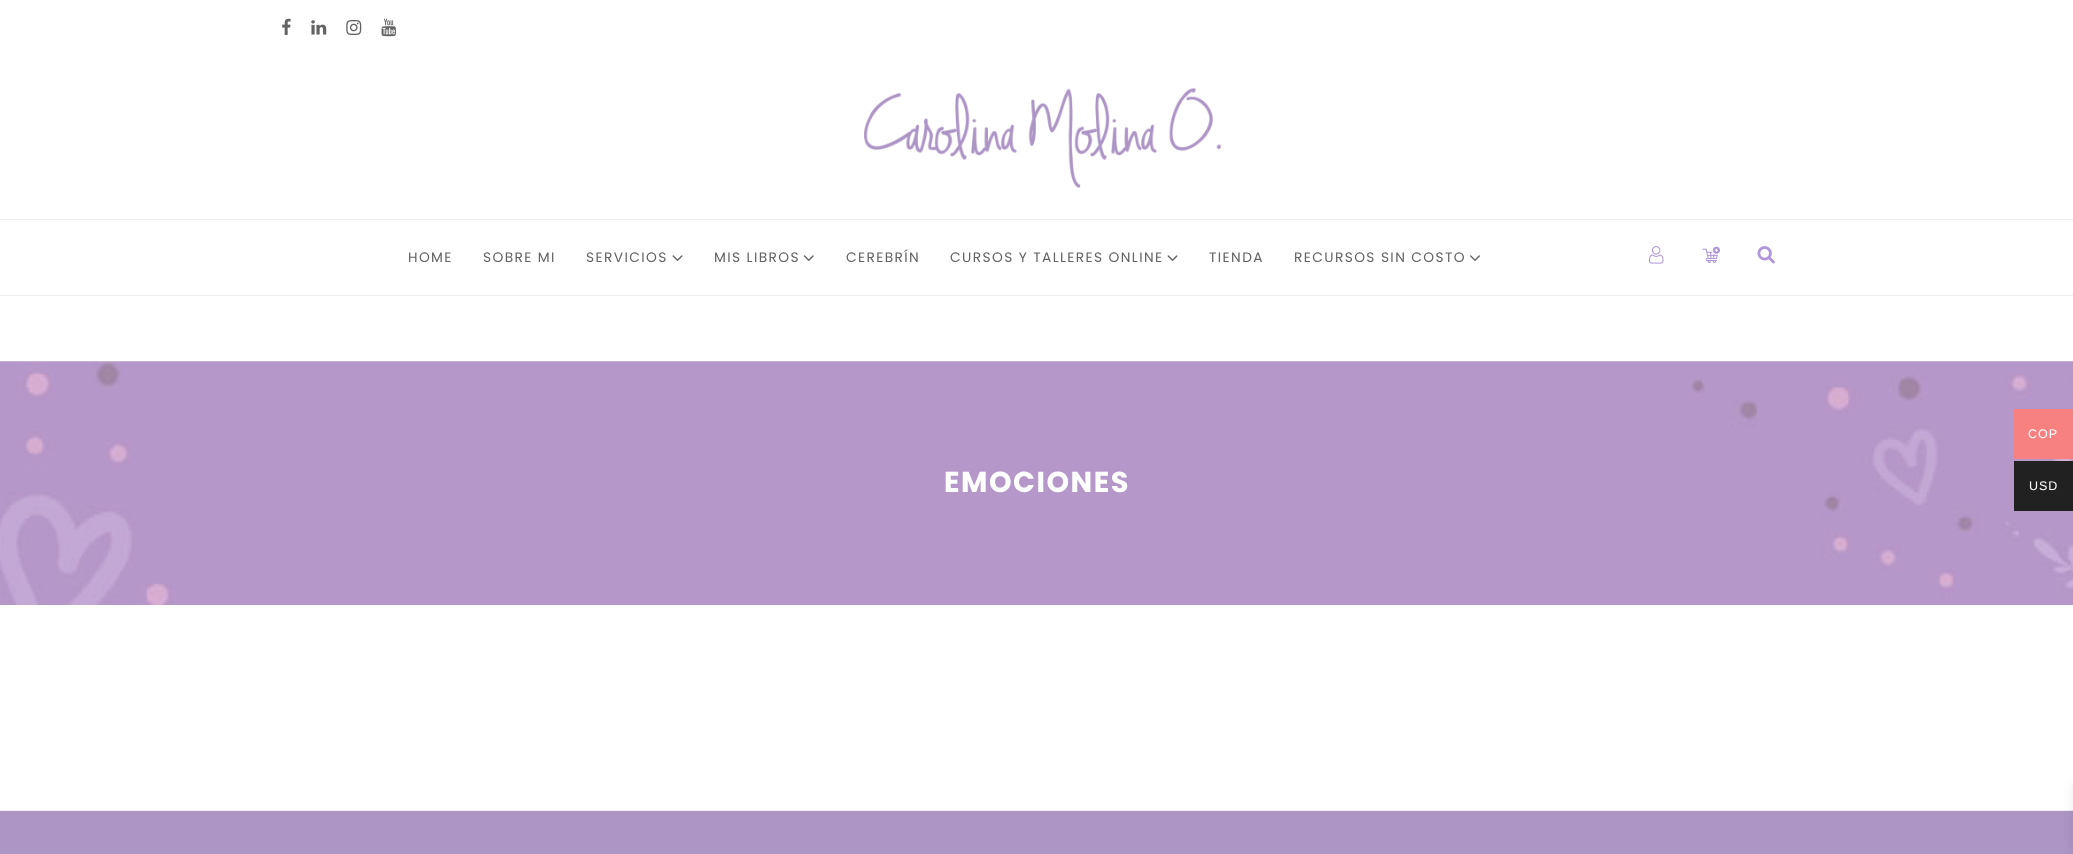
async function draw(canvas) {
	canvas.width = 2073;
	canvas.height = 854;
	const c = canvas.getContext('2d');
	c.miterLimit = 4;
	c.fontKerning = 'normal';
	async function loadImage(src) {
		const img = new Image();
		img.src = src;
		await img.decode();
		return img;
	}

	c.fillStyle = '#fff';
	c.fillRect(0, 0, 2073, 854);
	c.drawImage(await loadImage('img1.png'), 282, 18, 9, 17);
	c.drawImage(await loadImage('img2.png'), 311, 20, 16, 15);
	c.drawImage(await loadImage('img3.png'), 346, 20, 16, 15);
	c.drawImage(await loadImage('img4.png'), 381, 18, 15, 19);
	c.drawImage(await loadImage('img5.png'), 864, 87, 357, 101);
	c.fillStyle = '#eee';
	c.fillRect(0, 219, 2073, 1);
	c.fillRect(0, 295, 2073, 1);
	c.letterSpacing = '1.4px';
	c.font = '13.75px Poppins';
	c.fillStyle = '#636363';
	for (const [text, x, y] of [
		['HOME', 408, 262],
		['SOBRE MI', 483, 262],
		['SERVICIOS', 586, 262],
	]) {
		c.fillText(text, x, y);
	}
	c.drawImage(await loadImage('img6.png'), 672, 255, 11, 6);
	c.fillText('MIS LIBROS', 714, 262);
	c.drawImage(await loadImage('img7.png'), 803, 255, 11, 6);
	c.fillText('CEREBRÍN', 846, 262);
	c.fillText('CURSOS Y TALLERES ONLINE', 950, 262);
	c.drawImage(await loadImage('img6.png'), 1167, 255, 11, 6);
	c.fillText('TIENDA', 1209, 262);
	c.fillText('RECURSOS SIN COSTO', 1294, 262);
	c.drawImage(await loadImage('img8.png'), 1470, 255, 10, 6);
	c.drawImage(await loadImage('img9.png'), 1648, 246, 16, 18);
	c.drawImage(await loadImage('img10.png'), 1702, 246, 18, 17);
	c.drawImage(await loadImage('img11.png'), 1757, 246, 18, 18);
	c.drawImage(await loadImage('img12.png'), 0, 361, 2073, 244);
	c.letterSpacing = '1.5px';
	c.font = 'bold 28.75px Poppins';
	c.fillStyle = '#fff';
	c.fillText('EMOCIONES', 944, 492);
	for (const [x, y, w, h, color] of [
		[0, 811, 2073, 43, '#ad95c6'],
		[0, 810, 2073, 1, '#eee'],
		[2014, 409, 59, 50, '#f78080'],
	]) {
		c.fillStyle = color;
		c.fillRect(x, y, w, h);
	}
	c.letterSpacing = '1px';
	c.font = '12.5px Liberation Sans';
	c.fillStyle = '#fff';
	c.fillText('COP', 2028, 438);
	c.fillStyle = '#212121';
	c.fillRect(2014, 461, 59, 50);
	c.fillStyle = '#fff';
	c.fillText('USD', 2029, 490);
	c.fillStyle = '#0000001a';
	c.filter = 'blur(6px)';
	c.beginPath();
	c.rect(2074, 785, 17, 69);
	c.fill();
	c.filter = 'none';
}

draw(document.querySelector('canvas'));
